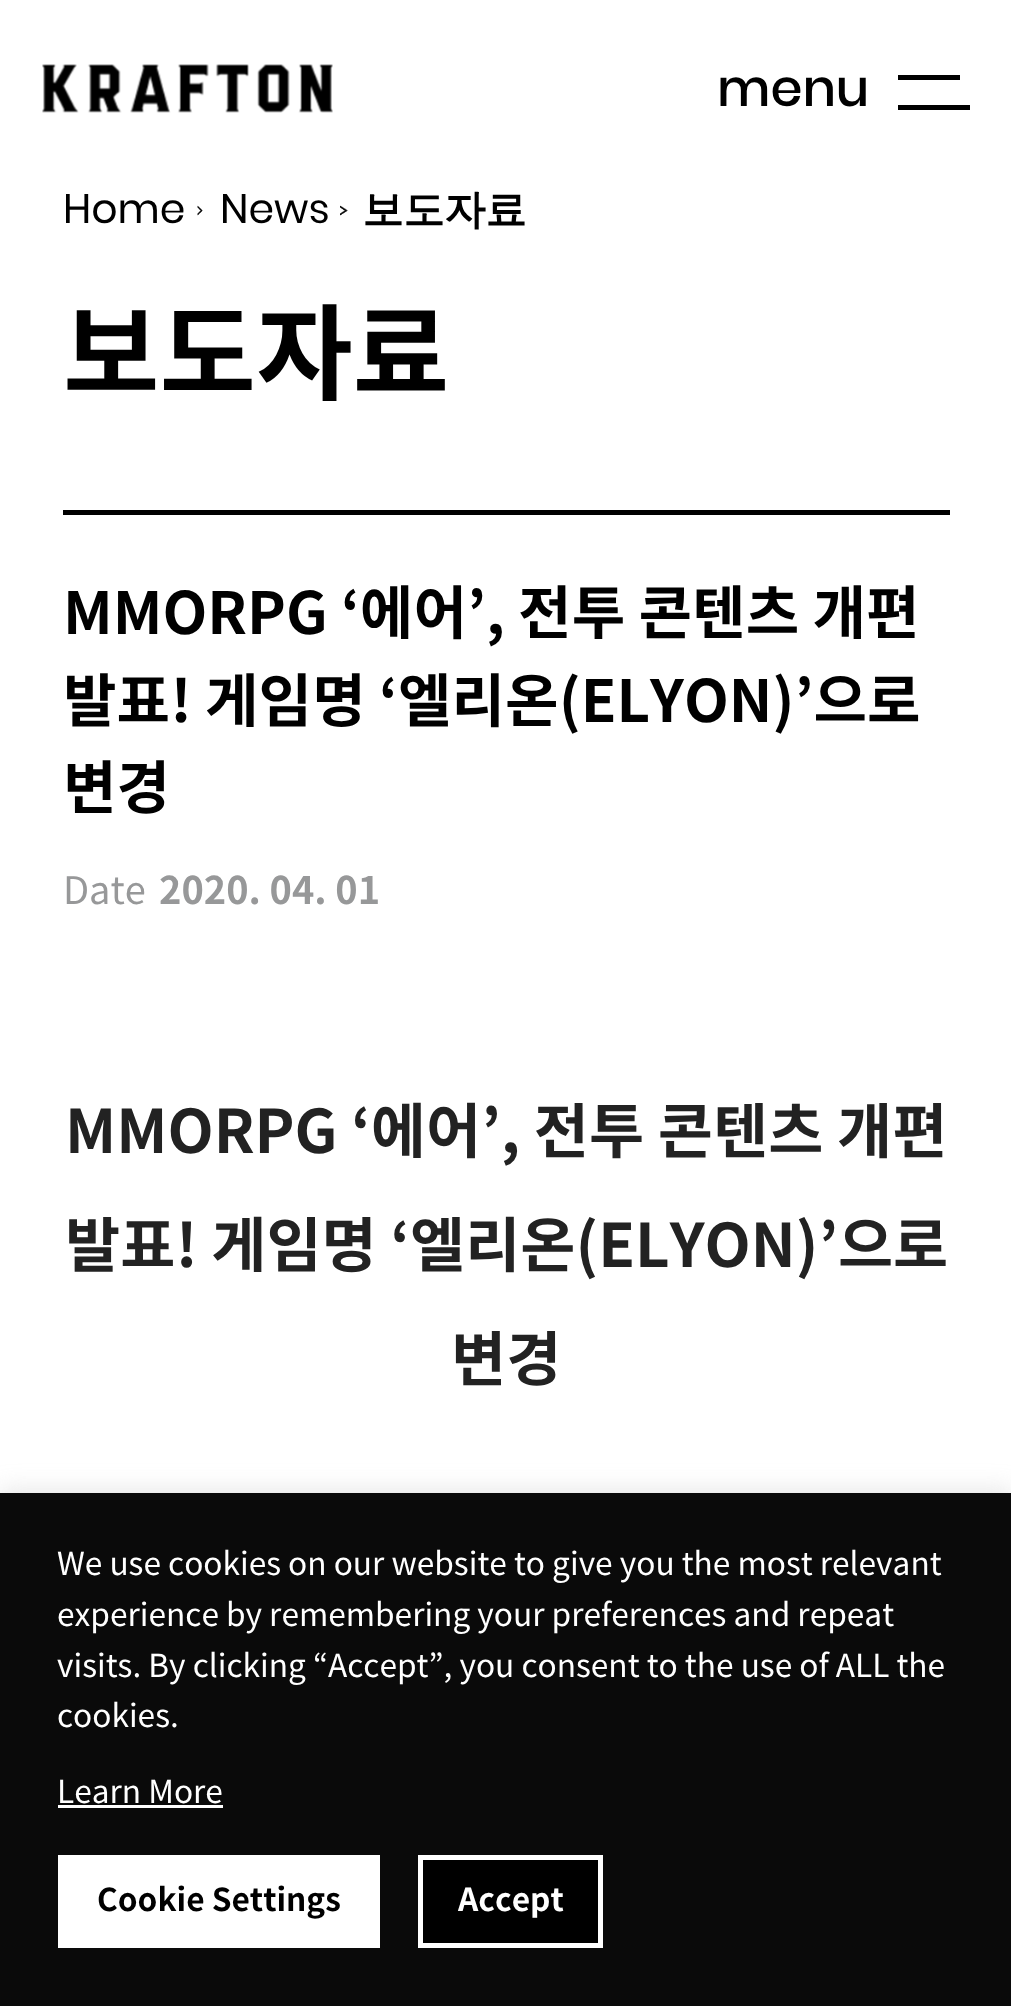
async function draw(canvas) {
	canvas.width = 1011;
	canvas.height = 2006;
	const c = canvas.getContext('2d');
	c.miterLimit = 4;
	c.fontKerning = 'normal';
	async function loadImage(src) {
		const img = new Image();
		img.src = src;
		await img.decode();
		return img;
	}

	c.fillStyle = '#fff';
	c.fillRect(0, 0, 1011, 2006);
	c.drawImage(await loadImage('img1.png'), 42, 64, 291, 49);
	c.font = '500 51.5px Poppins';
	c.fillStyle = '#000';
	c.fillText('menu', 717, 106);
	c.fillRect(898, 75, 62, 5);
	c.fillRect(898, 105, 72, 5);
	c.font = '41px Poppins';
	c.fillText('Home', 63, 223);
	c.drawImage(await loadImage('img2.png'), 197, 205, 6, 11);
	c.fillText('News', 220, 223);
	c.drawImage(await loadImage('img3.png'), 340, 205, 8, 11);
	c.font = '600 41px Poppins';
	c.fillText('보도자료', 363, 223);
	c.font = 'bold 105px Noto Sans';
	c.fillText('보도자료', 63, 392);
	c.fillRect(63, 510, 887, 5);
	c.font = 'bold 58.25px Noto Sans';
	for (const [text, x, y] of [
		['MMORPG ‘에어’, 전투 콘텐츠 개편', 63, 634],
		['발표! 게임명 ‘엘리온(ELYON)’으로', 63, 722],
		['변경', 63, 809],
	]) {
		c.fillText(text, x, y);
	}
	c.font = '38px Noto Sans';
	c.fillStyle = '#979899';
	c.fillText('Date', 63, 904);
	c.font = 'bold 38px Noto Sans';
	c.fillText('2020. 04. 01', 159, 904);
	c.font = 'bold 60px Noto Sans';
	c.fillStyle = '#222';
	for (const [text, x, y] of [
		['MMORPG ‘에어’, 전투 콘텐츠 개편', 65, 1153],
		['발표! 게임명 ‘엘리온(ELYON)’으로', 65, 1267],
		['변경', 451, 1381],
	]) {
		c.fillText(text, x, y);
	}
	c.fillStyle = '#acabab4d';
	c.filter = 'blur(12.5px)';
	c.beginPath();
	c.rect(0, 1490, 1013, 515);
	c.fill();
	c.filter = 'none';
	c.fillStyle = '#0a0a0a';
	c.fillRect(0, 1493, 1011, 513);
	c.font = '31.65px Noto Sans';
	c.fillStyle = '#fff';
	for (const [text, x, y] of [
		['We use cookies on our website to give you the most relevant', 57, 1575],
		['experience by remembering your preferences and repeat', 57, 1626],
		['visits. By clicking “Accept”, you consent to the use of ALL the', 57, 1677],
		['cookies.', 57, 1727],
		['Learn More', 57, 1803],
	]) {
		c.fillText(text, x, y);
	}
	c.fillRect(58, 1805, 165, 3);
	c.fillRect(58, 1855, 322, 93);
	c.font = 'bold 31.65px Noto Sans';
	c.fillStyle = '#000';
	c.fillText('Cookie Settings', 97, 1911);
	c.beginPath();
	c.rect(420.5, 1857.5, 180, 88);
	c.fill();
	c.strokeStyle = '#fff';
	c.lineWidth = 5;
	c.stroke();
	c.fillStyle = '#fff';
	c.fillText('Accept', 458, 1911);
}

draw(document.querySelector('canvas'));
